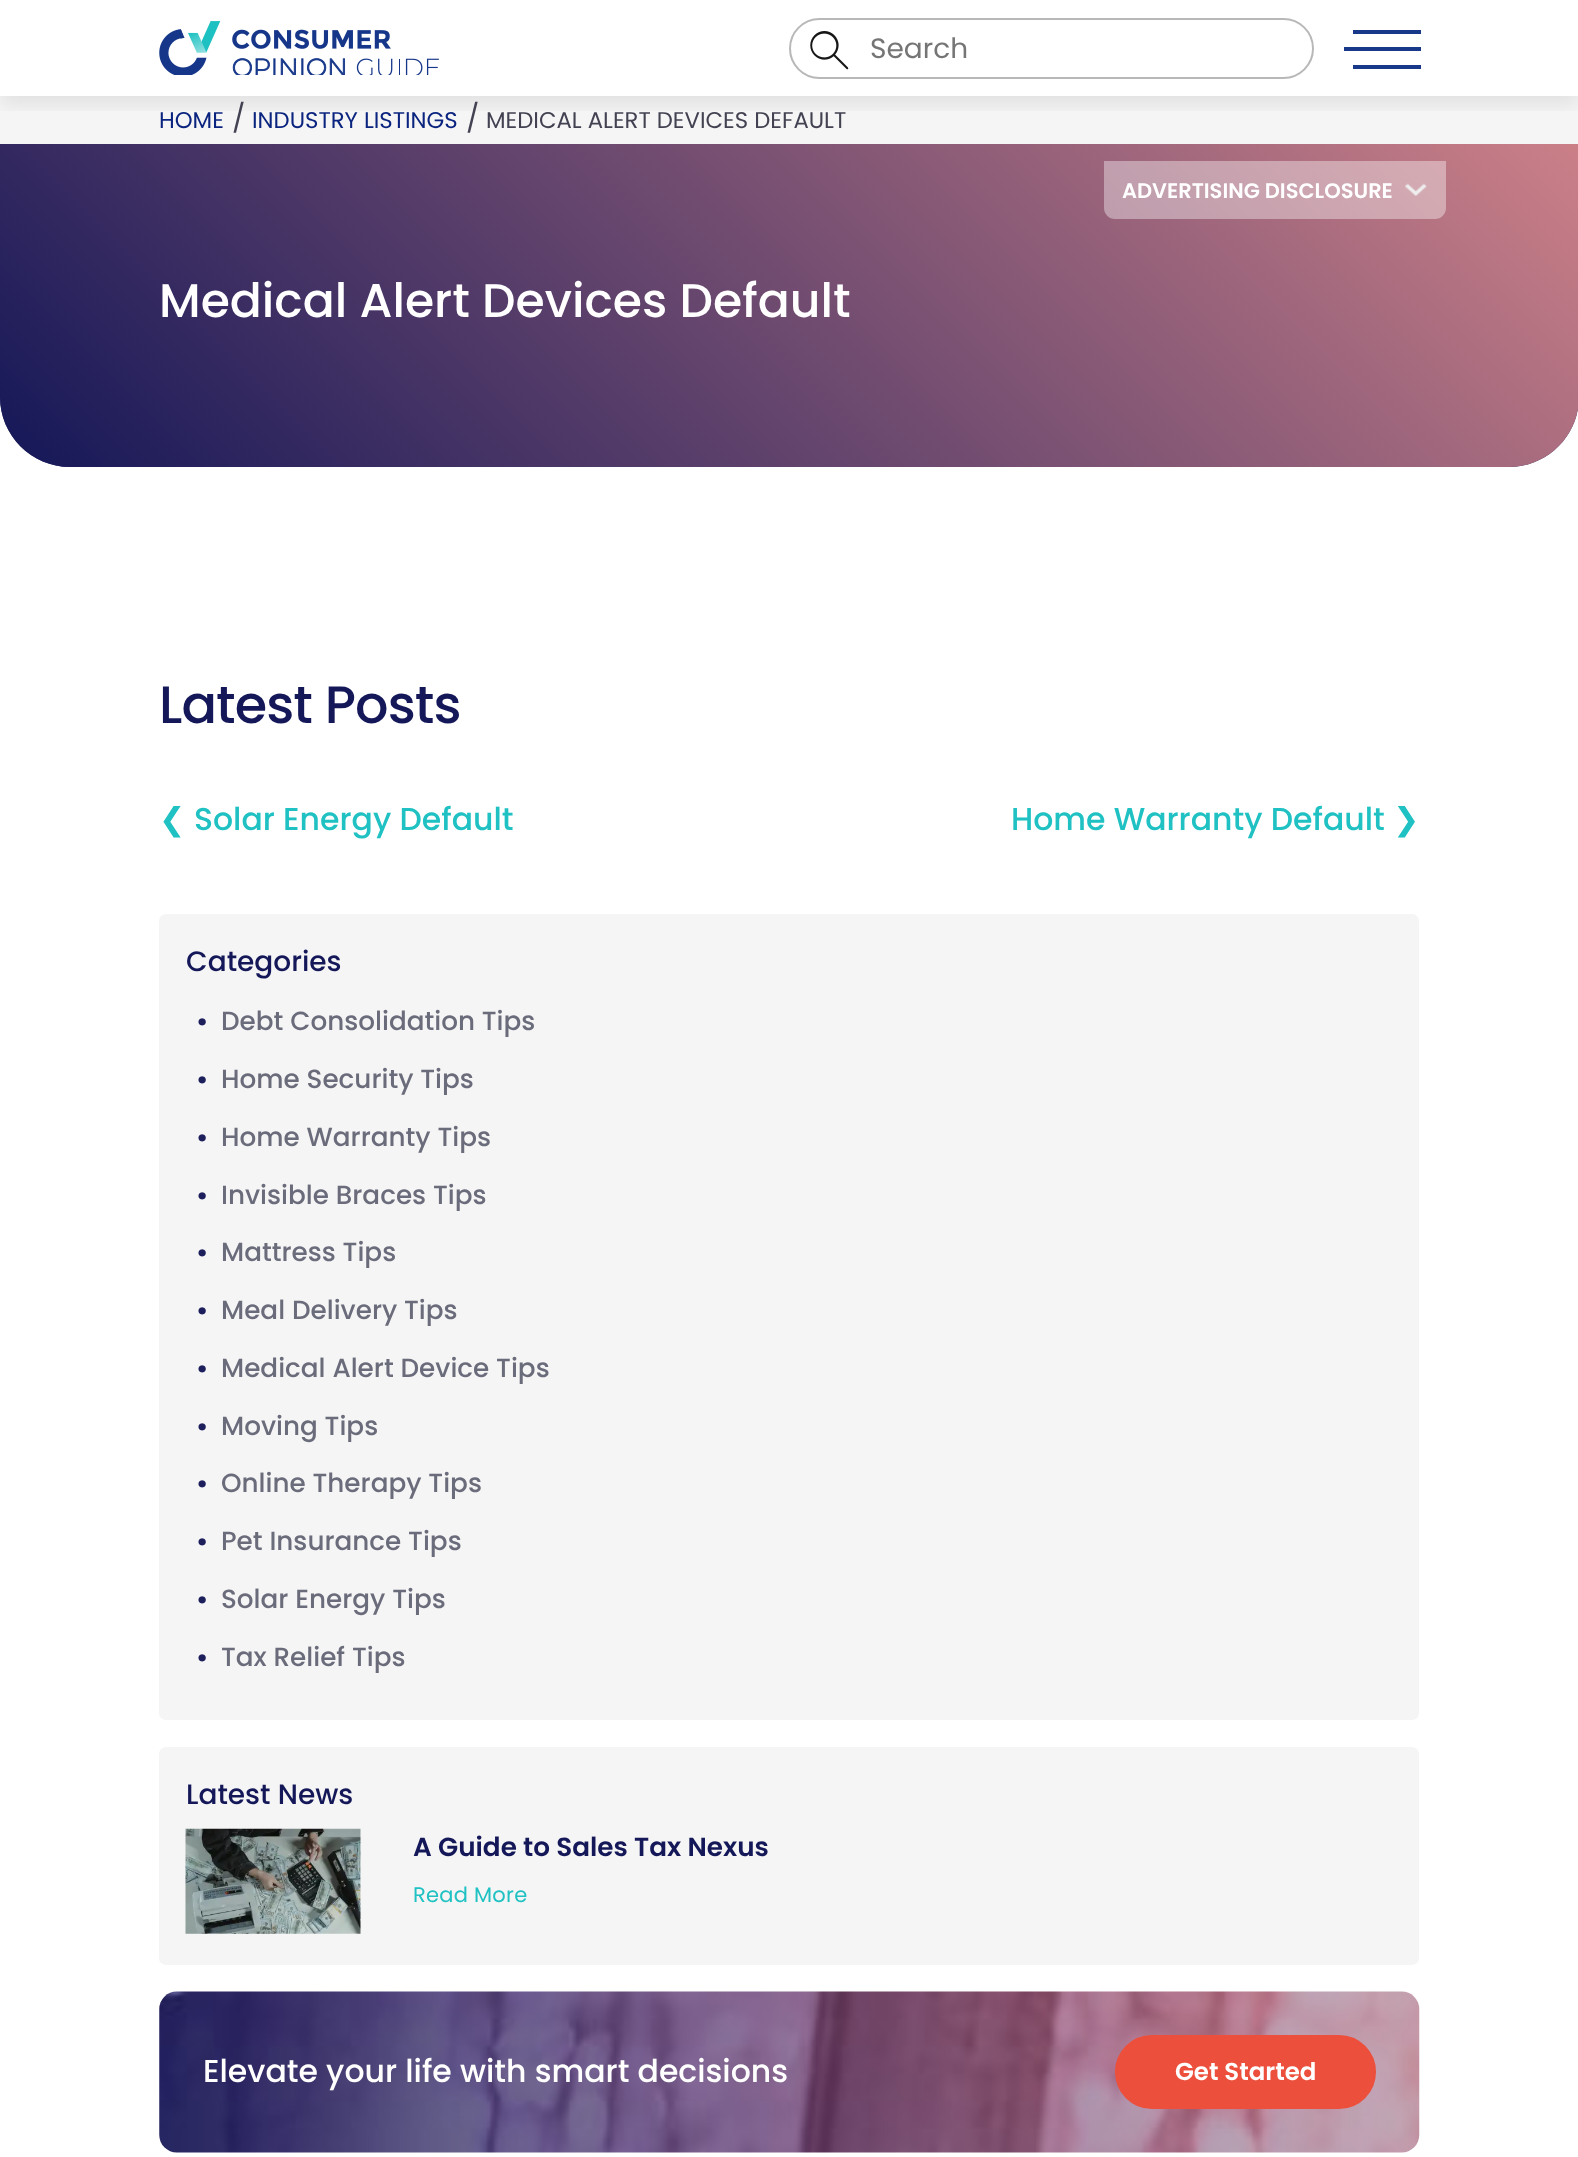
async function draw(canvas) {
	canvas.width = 1578;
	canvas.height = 2157;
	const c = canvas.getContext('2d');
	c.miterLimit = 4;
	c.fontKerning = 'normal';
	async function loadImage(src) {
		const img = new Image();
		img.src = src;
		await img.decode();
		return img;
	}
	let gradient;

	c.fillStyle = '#fff';
	c.fillRect(0, 0, 1578, 2157);
	c.fillStyle = '#f5f5f5';
	c.fillRect(0, 96, 1578, 48);
	c.save();
	c.beginPath();
	c.rect(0, 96, 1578, 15);
	c.clip();
	c.fillStyle = '#00010114';
	c.filter = 'blur(9.5px)';
	c.beginPath();
	c.rect(0, 9, 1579, 96);
	c.fill();
	c.filter = 'none';
	c.restore();
	c.drawImage(await loadImage('img1.png'), 159, 21, 280, 54);
	c.drawImage(await loadImage('img2.png'), 810, 31, 39, 39);
	c.beginPath();
	c.roundRect(790, 19, 523, 59, 29.5);
	c.strokeStyle = '#b8b8b8';
	c.lineWidth = 2;
	c.stroke();
	c.font = '28px Poppins';
	c.fillStyle = '#757575';
	c.fillText('Search', 870, 58);
	for (const [x, y, w, h, color] of [
		[1353, 30, 68, 4, '#18388a'],
		[1344, 47, 77, 4, '#18388a'],
		[1353, 65, 68, 4, '#18388a'],
	]) {
		c.fillStyle = color;
		c.fillRect(x, y, w, h);
	}
	c.fillStyle = '#141758';
	c.beginPath();
	c.moveTo(0, 144);
	c.lineTo(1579, 144);
	c.lineTo(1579, 397);
	c.bezierCurveTo(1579, 435.5, 1547.5, 467, 1509, 467);
	c.lineTo(70, 467);
	c.bezierCurveTo(31.5, 467, 0, 435.5, 0, 397);
	c.closePath();
	c.fill();
	gradient = c.createLinearGradient(314, 781, 1265, -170);
	gradient.addColorStop(0, '#141758e6');
	gradient.addColorStop(1, '#df8b8de6');
	c.fillStyle = gradient;
	c.beginPath();
	c.moveTo(0, 144);
	c.lineTo(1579, 144);
	c.lineTo(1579, 397);
	c.bezierCurveTo(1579, 435.5, 1547.5, 467, 1509, 467);
	c.lineTo(70, 467);
	c.bezierCurveTo(31.5, 467, 0, 435.5, 0, 397);
	c.closePath();
	c.fill();
	c.fillStyle = '#ffffff61';
	c.beginPath();
	c.roundRect(1104, 161, 342, 58, [0, 0, 11, 11]);
	c.fill();
	c.font = '600 21px Poppins';
	c.fillStyle = '#fff';
	c.fillText('ADVERTISING DISCLOSURE', 1122, 198);
	c.drawImage(await loadImage('img3.png'), 1405, 183, 22, 13);
	c.font = '22.75px Poppins';
	c.fillStyle = '#0b247f';
	c.fillText('HOME', 159, 128);
	c.font = '28px Poppins';
	c.fillStyle = '#424252';
	c.fillText('/', 232, 128);
	c.font = '22.75px Poppins';
	c.fillStyle = '#0b247f';
	c.fillText('INDUSTRY LISTINGS', 252, 128);
	c.font = '28px Poppins';
	c.fillStyle = '#424252';
	c.fillText('/', 466, 128);
	c.font = '22.75px Poppins';
	c.fillText('MEDICAL ALERT DEVICES DEFAULT', 486, 128);
	c.font = '500 47.25px Poppins';
	c.fillStyle = '#fff';
	c.fillText('Medical Alert Devices Default', 159, 317);
	c.letterSpacing = '-0.9px';
	c.font = '500 52.5px Poppins';
	c.fillStyle = '#141758';
	c.fillText('Latest Posts', 159, 723);
	c.letterSpacing = '0px';
	c.font = '31.5px DejaVu Sans';
	c.fillStyle = '#1fc1c3';
	c.fillText('❮', 159, 830);
	c.font = '500 31.5px Poppins';
	c.fillText('Solar Energy Default', 194, 830);
	c.fillText('Home Warranty Default', 1011, 830);
	c.font = '31.5px DejaVu Sans';
	c.fillText('❯', 1393, 830);
	c.fillStyle = '#f5f5f5';
	c.beginPath();
	c.roundRect(159, 914, 1260, 806, 7);
	c.fill();
	c.font = '500 28px Poppins';
	c.fillStyle = '#141758';
	c.fillText('Categories', 186, 971);
	c.font = 'bold 24.5px Poppins';
	c.fillStyle = '#1c1f5c';
	c.fillText('•', 196, 1030);
	c.font = '500 26.25px Poppins';
	c.fillStyle = '#6b6c7b';
	c.fillText('Debt Consolidation Tips', 221, 1030);
	c.font = 'bold 24.5px Poppins';
	c.fillStyle = '#1c1f5c';
	c.fillText('•', 196, 1088);
	c.font = '500 26.25px Poppins';
	c.fillStyle = '#6b6c7b';
	c.fillText('Home Security Tips', 221, 1088);
	c.font = 'bold 24.5px Poppins';
	c.fillStyle = '#1c1f5c';
	c.fillText('•', 196, 1146);
	c.font = '500 26.25px Poppins';
	c.fillStyle = '#6b6c7b';
	c.fillText('Home Warranty Tips', 221, 1146);
	c.font = 'bold 24.5px Poppins';
	c.fillStyle = '#1c1f5c';
	c.fillText('•', 196, 1204);
	c.font = '500 26.25px Poppins';
	c.fillStyle = '#6b6c7b';
	c.fillText('Invisible Braces Tips', 221, 1204);
	c.font = 'bold 24.5px Poppins';
	c.fillStyle = '#1c1f5c';
	c.fillText('•', 196, 1261);
	c.font = '500 26.25px Poppins';
	c.fillStyle = '#6b6c7b';
	c.fillText('Mattress Tips', 221, 1261);
	c.font = 'bold 24.5px Poppins';
	c.fillStyle = '#1c1f5c';
	c.fillText('•', 196, 1319);
	c.font = '500 26.25px Poppins';
	c.fillStyle = '#6b6c7b';
	c.fillText('Meal Delivery Tips', 221, 1319);
	c.font = 'bold 24.5px Poppins';
	c.fillStyle = '#1c1f5c';
	c.fillText('•', 196, 1377);
	c.font = '500 26.25px Poppins';
	c.fillStyle = '#6b6c7b';
	c.fillText('Medical Alert Device Tips', 221, 1377);
	c.font = 'bold 24.5px Poppins';
	c.fillStyle = '#1c1f5c';
	c.fillText('•', 196, 1435);
	c.font = '500 26.25px Poppins';
	c.fillStyle = '#6b6c7b';
	c.fillText('Moving Tips', 221, 1435);
	c.font = 'bold 24.5px Poppins';
	c.fillStyle = '#1c1f5c';
	c.fillText('•', 196, 1492);
	c.font = '500 26.25px Poppins';
	c.fillStyle = '#6b6c7b';
	c.fillText('Online Therapy Tips', 221, 1492);
	c.font = 'bold 24.5px Poppins';
	c.fillStyle = '#1c1f5c';
	c.fillText('•', 196, 1550);
	c.font = '500 26.25px Poppins';
	c.fillStyle = '#6b6c7b';
	c.fillText('Pet Insurance Tips', 221, 1550);
	c.font = 'bold 24.5px Poppins';
	c.fillStyle = '#1c1f5c';
	c.fillText('•', 196, 1608);
	c.font = '500 26.25px Poppins';
	c.fillStyle = '#6b6c7b';
	c.fillText('Solar Energy Tips', 221, 1608);
	c.font = 'bold 24.5px Poppins';
	c.fillStyle = '#1c1f5c';
	c.fillText('•', 196, 1666);
	c.font = '500 26.25px Poppins';
	c.fillStyle = '#6b6c7b';
	c.fillText('Tax Relief Tips', 221, 1666);
	c.fillStyle = '#f5f5f5';
	c.beginPath();
	c.roundRect(159, 1747, 1260, 218, 7);
	c.fill();
	c.font = '500 28px Poppins';
	c.fillStyle = '#141758';
	c.fillText('Latest News', 186, 1804);
	c.drawImage(await loadImage('img4.png'), 185, 1828, 176, 106);
	c.font = '600 26.25px Poppins';
	c.fillText('A Guide to Sales Tax Nexus', 413, 1856);
	c.letterSpacing = '0.25px';
	c.font = '21px Poppins';
	c.fillStyle = '#1fc1c3';
	c.fillText('Read More', 413, 1902);
	c.drawImage(await loadImage('img5.png'), 159, 1991, 1261, 162);
	c.letterSpacing = '0px';
	c.font = '500 31.5px Poppins';
	c.fillStyle = '#fff';
	c.fillText('Elevate your life with smart decisions', 203, 2082);
	c.fillStyle = '#ec4f3b';
	c.beginPath();
	c.roundRect(1116, 2036, 259, 72, 36);
	c.fill();
	c.strokeStyle = '#ec4f3b';
	c.stroke();
	c.font = '600 24.5px Poppins';
	c.fillStyle = '#fff';
	c.fillText('Get Started', 1175, 2080);
}

draw(document.querySelector('canvas'));
